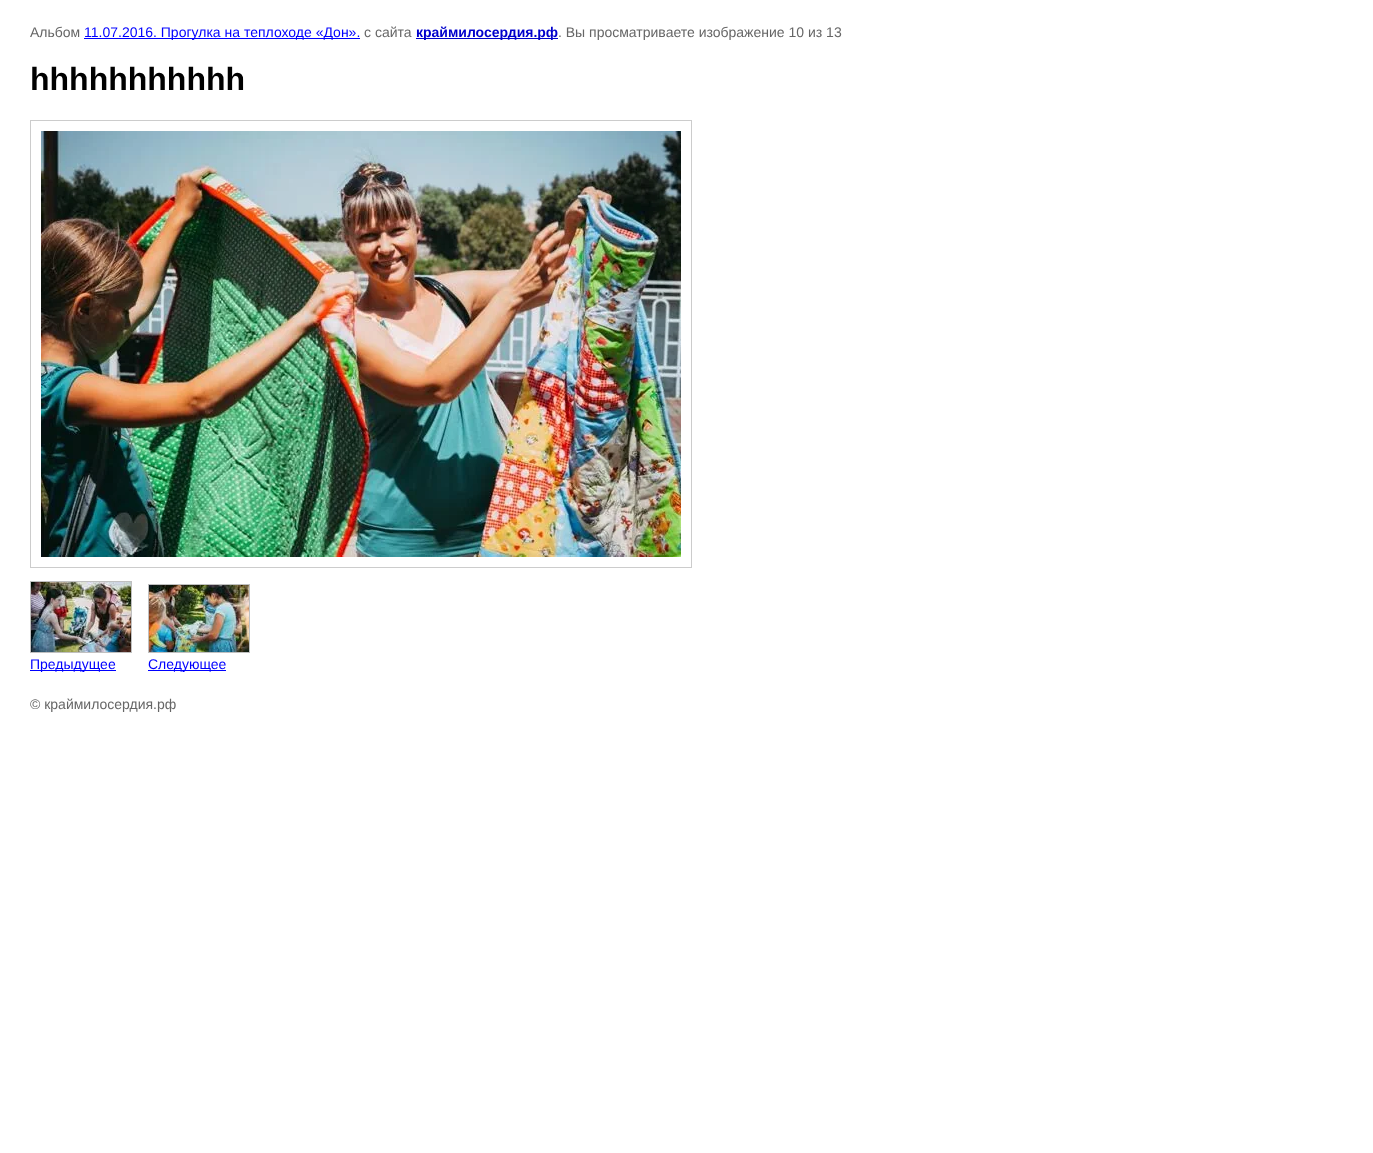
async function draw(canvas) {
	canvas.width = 1373;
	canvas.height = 1153;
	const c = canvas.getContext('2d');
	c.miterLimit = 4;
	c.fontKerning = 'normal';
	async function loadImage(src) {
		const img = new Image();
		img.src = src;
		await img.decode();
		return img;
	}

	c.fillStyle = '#fff';
	c.fillRect(0, 0, 1373, 1153);
	c.font = '14px Liberation Sans';
	c.fillStyle = '#666';
	c.fillText('Альбом', 30, 37);
	c.fillStyle = '#00f';
	c.fillRect(84, 38, 276, 1);
	c.fillText('11.07.2016. Прогулка на теплоходе «Дон».', 84, 37);
	c.fillStyle = '#666';
	c.fillText('с сайта', 364, 37);
	c.fillStyle = '#00c';
	c.fillRect(416, 38, 142, 1);
	c.font = 'bold 14px Liberation Sans';
	c.fillText('краймилосердия.рф', 416, 37);
	c.font = '14px Liberation Sans';
	c.fillStyle = '#666';
	c.fillText('. Вы просматриваете изображение 10 из 13', 558, 37);
	c.font = 'bold 32px Liberation Sans';
	c.fillStyle = '#000';
	c.fillText('hhhhhhhhhhh', 30, 90);
	c.strokeStyle = '#ccc';
	c.strokeRect(30.5, 120.5, 661, 447);
	c.drawImage(await loadImage('img1.png'), 41, 131, 640, 426);
	c.strokeStyle = '#c0c0c0';
	c.strokeRect(30.5, 581.5, 101, 71);
	c.drawImage(await loadImage('img2.png'), 31, 582, 100, 70);
	c.fillStyle = '#00f';
	c.fillRect(30, 670, 86, 1);
	c.font = '14px Liberation Sans';
	c.fillText('Предыдущее', 30, 669);
	c.strokeRect(148.5, 584.5, 101, 68);
	c.drawImage(await loadImage('img3.png'), 149, 585, 100, 67);
	c.fillRect(148, 670, 78, 1);
	c.fillText('Следующее', 148, 669);
	c.fillStyle = '#666';
	c.fillText('© краймилосердия.рф', 30, 709);
}

draw(document.querySelector('canvas'));
